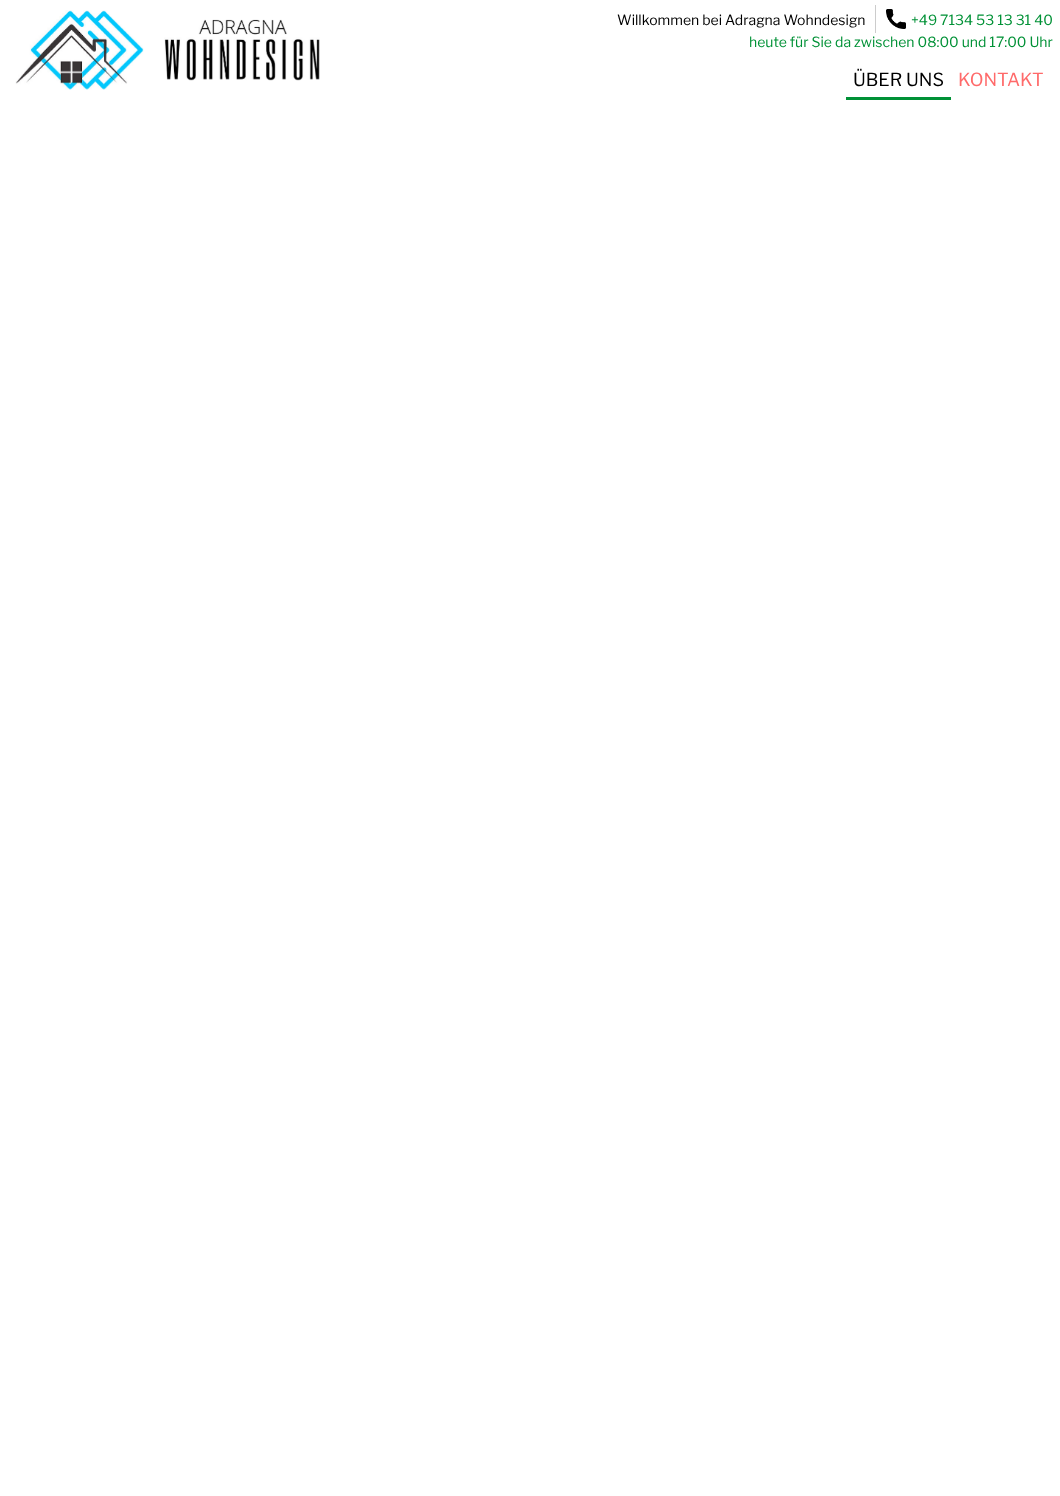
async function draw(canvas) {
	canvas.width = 1060;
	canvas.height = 1496;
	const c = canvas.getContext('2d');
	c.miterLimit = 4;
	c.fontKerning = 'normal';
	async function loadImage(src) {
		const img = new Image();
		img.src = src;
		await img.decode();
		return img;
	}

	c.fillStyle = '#fff';
	c.fillRect(0, 0, 1060, 1496);
	c.drawImage(await loadImage('img1.png'), 15, 10, 129, 80);
	c.drawImage(await loadImage('img2.png'), 164, 19, 156, 62);
	c.font = '100 14px Libre Franklin';
	c.fillStyle = '#000';
	c.fillText('Willkommen bei Adragna Wohndesign', 617, 25);
	c.fillStyle = '#ccc';
	c.fillRect(875, 5, 1, 28);
	c.drawImage(await loadImage('img3.png'), 886, 9, 20, 20);
	c.fillStyle = '#009136';
	c.fillText('+49 7134 53 13 31 40', 911, 25);
	c.fillText('heute für Sie da zwischen 08:00 und 17:00 Uhr', 749, 47);
	c.font = '100 18px Libre Franklin';
	c.fillStyle = '#000';
	c.fillText('ÜBER UNS', 853, 86);
	c.fillStyle = '#009136';
	c.fillRect(846, 97, 105, 3);
	c.fillStyle = '#ff6a6a';
	c.fillText('KONTAKT', 958, 86);
}

draw(document.querySelector('canvas'));
